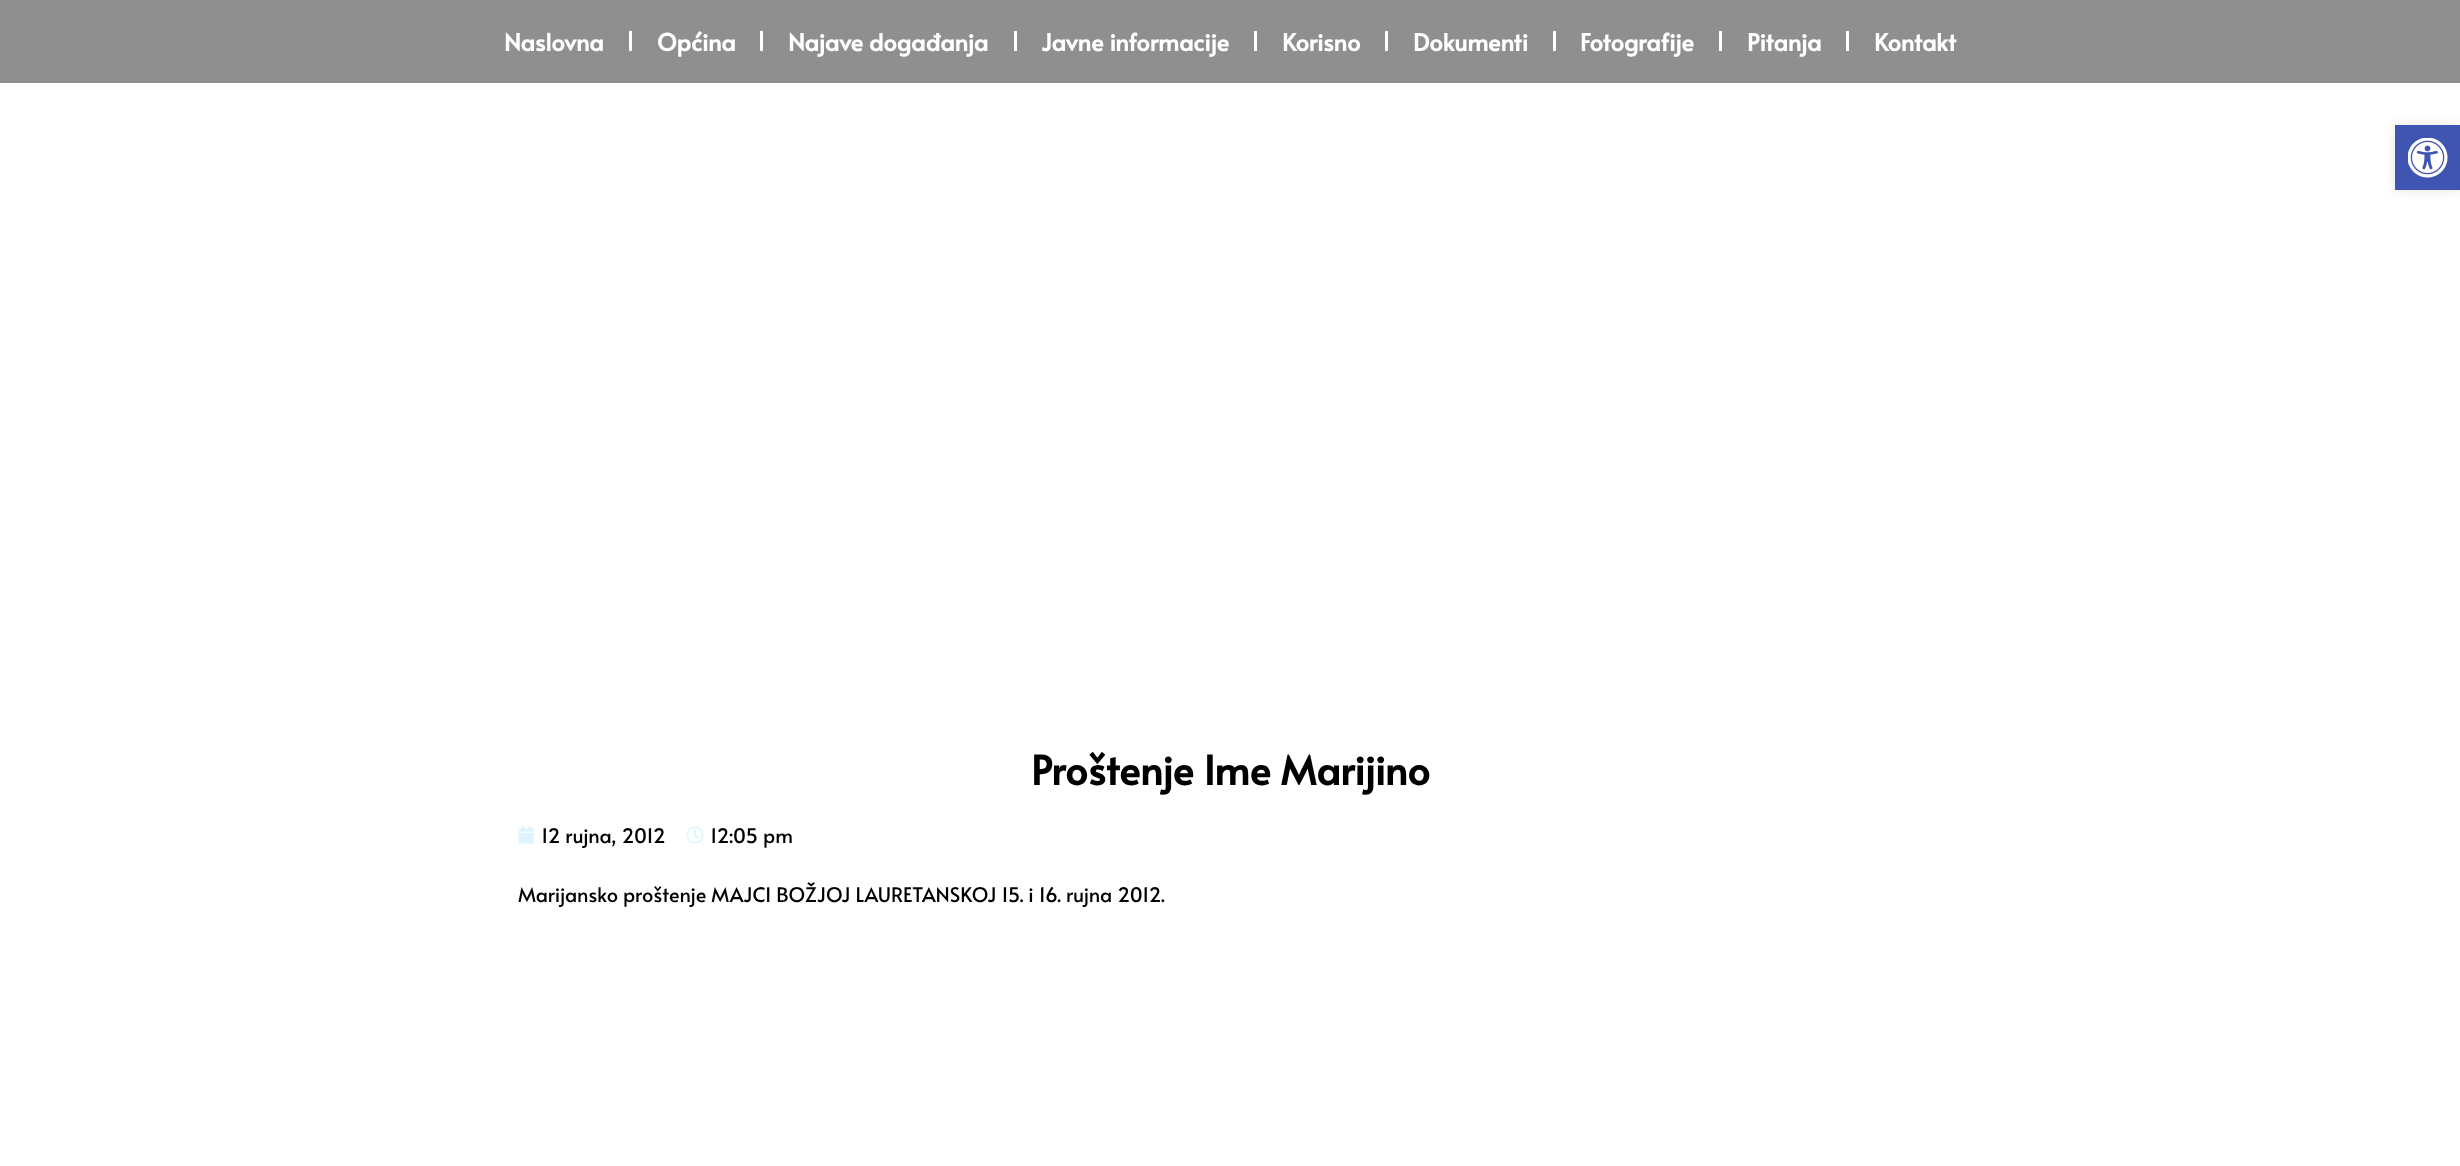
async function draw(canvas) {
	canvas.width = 2460;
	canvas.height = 1166;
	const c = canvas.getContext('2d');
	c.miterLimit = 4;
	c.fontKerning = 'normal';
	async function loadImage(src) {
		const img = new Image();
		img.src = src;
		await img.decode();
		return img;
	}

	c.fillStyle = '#fff';
	c.fillRect(0, 0, 2460, 1166);
	c.fillStyle = '#8f8f8f';
	c.fillRect(0, 0, 2460, 83);
	c.font = 'bold 23.75px Alata';
	c.fillStyle = '#fff';
	c.fillText('Naslovna', 504, 51);
	c.fillRect(629, 31, 3, 20);
	c.fillText('Općina', 657, 51);
	c.fillRect(760, 31, 3, 20);
	c.fillText('Najave događanja', 788, 51);
	c.fillRect(1014, 31, 3, 20);
	c.fillText('Javne informacije', 1041, 51);
	c.fillRect(1254, 31, 3, 20);
	c.fillText('Korisno', 1282, 51);
	c.fillRect(1385, 31, 3, 20);
	c.fillText('Dokumenti', 1413, 51);
	c.fillRect(1553, 31, 3, 20);
	c.fillText('Fotografije', 1580, 51);
	c.fillRect(1719, 31, 3, 20);
	c.fillText('Pitanja', 1747, 51);
	c.fillRect(1846, 31, 3, 20);
	c.fillText('Kontakt', 1874, 51);
	c.font = 'bold 40px Alata';
	c.fillStyle = '#000';
	c.fillText('Proštenje Ime Marijino', 1031, 785);
	c.drawImage(await loadImage('img1.png'), 518, 826, 16, 18);
	c.font = '20px Alata';
	c.fillText('12 rujna, 2012', 541, 843);
	c.drawImage(await loadImage('img2.png'), 686, 826, 18, 18);
	c.fillText('12:05 pm', 710, 843);
	c.fillText('Marijansko proštenje MAJCI BOŽJOJ LAURETANSKOJ 15. i 16. rujna 2012.', 518, 902);
	c.fillStyle = '#0000001a';
	c.filter = 'blur(6px)';
	c.beginPath();
	c.rect(2395, 125, 65, 65);
	c.fill();
	c.filter = 'none';
	c.fillStyle = '#4054b2';
	c.fillRect(2395, 125, 65, 65);
	c.drawImage(await loadImage('img3.png'), 2408, 138, 40, 40);
}

draw(document.querySelector('canvas'));
